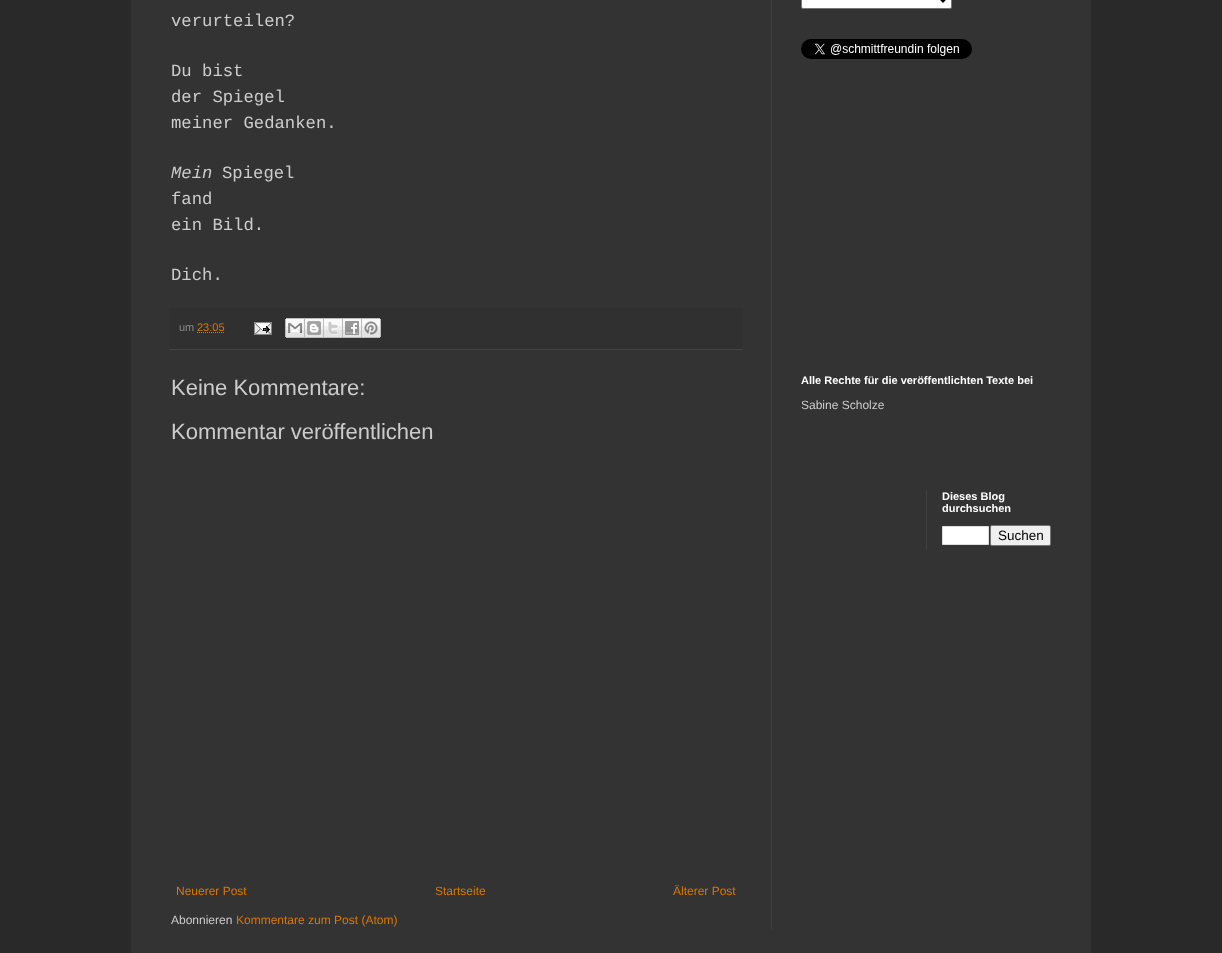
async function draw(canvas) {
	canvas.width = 1222;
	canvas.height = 953;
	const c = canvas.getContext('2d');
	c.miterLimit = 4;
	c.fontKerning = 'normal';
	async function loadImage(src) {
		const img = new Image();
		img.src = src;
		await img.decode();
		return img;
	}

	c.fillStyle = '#292929';
	c.fillRect(0, 0, 1222, 953);
	c.fillStyle = '#333';
	c.fillRect(131, 0, 960, 953);
	c.fillStyle = '#404040';
	c.fillRect(771, 0, 1, 929);
	c.font = '17.25px Liberation Mono';
	c.fillStyle = '#ccc';
	for (const [text, x, y] of [
		['verurteilen?', 171, 26],
		['Du bist', 171, 76],
		['der Spiegel', 171, 102],
		['meiner Gedanken.', 171, 128],
	]) {
		c.fillText(text, x, y);
	}
	c.font = 'italic 17.25px Liberation Mono';
	c.fillText('Mein', 171, 178);
	c.font = '17.25px Liberation Mono';
	for (const [text, x, y] of [
		['Spiegel', 222, 178],
		['fand', 171, 204],
		['ein Bild.', 171, 230],
		['Dich.', 171, 280],
	]) {
		c.fillText(text, x, y);
	}
	c.fillStyle = '#303030';
	c.fillRect(169, 308, 574, 41);
	c.fillStyle = '#444';
	c.fillRect(169, 349, 574, 1);
	c.font = '11px Liberation Sans';
	c.fillStyle = '#888';
	c.fillText('um', 179, 331);
	c.fillStyle = '#d70';
	c.fillText('23:05', 197, 331);
	c.beginPath();
	c.moveTo(197, 332.5);
	c.lineTo(224, 332.5);
	c.strokeStyle = '#d70';
	c.setLineDash([1, 1]);
	c.stroke();
	c.drawImage(await loadImage('img1.png'), 254, 322, 18, 13);
	c.drawImage(await loadImage('img2.png'), 285, 318, 20, 20);
	c.drawImage(await loadImage('img3.png'), 305, 318, 19, 20);
	c.drawImage(await loadImage('img4.png'), 324, 318, 19, 20);
	c.drawImage(await loadImage('img5.png'), 343, 318, 19, 20);
	c.drawImage(await loadImage('img6.png'), 362, 318, 19, 20);
	c.font = '22px Liberation Sans';
	c.fillStyle = '#ccc';
	c.fillText('Keine Kommentare:', 171, 395);
	c.fillText('Kommentar veröffentlichen', 171, 439);
	c.font = '12px Liberation Sans';
	c.fillStyle = '#d70';
	for (const [text, x, y] of [
		['Neuerer Post', 176, 895],
		['Startseite', 435, 895],
		['Älterer Post', 673, 895],
	]) {
		c.fillText(text, x, y);
	}
	c.fillStyle = '#ccc';
	c.fillText('Abonnieren', 171, 924);
	c.fillStyle = '#d70';
	c.fillText('Kommentare zum Post (Atom)', 236, 924);
	c.fillStyle = '#fff';
	c.beginPath();
	c.roundRect(801.5, -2.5, 150, 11, 1.5);
	c.fill();
	c.strokeStyle = '#767676';
	c.setLineDash([]);
	c.stroke();
	c.beginPath();
	c.moveTo(939, -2.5);
	c.lineTo(943, 1.5);
	c.lineTo(947, -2.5);
	c.strokeStyle = '#000';
	c.lineWidth = 2;
	c.stroke();
	c.drawImage(await loadImage('img7.png'), 801, 39, 171, 20);
	c.font = 'bold 11px Liberation Sans';
	c.fillText('Alle Rechte für die veröffentlichten Texte bei', 801, 384);
	c.font = '12px Liberation Sans';
	c.fillStyle = '#ccc';
	c.fillText('Sabine Scholze', 801, 409);
	c.fillStyle = '#404040';
	c.fillRect(926, 490, 1, 60);
	c.font = 'bold 11px Liberation Sans';
	c.fillStyle = '#fff';
	c.fillText('Dieses Blog', 942, 500);
	c.fillText('durchsuchen', 942, 512);
	c.beginPath();
	c.rect(942.5, 526.5, 46, 18);
	c.fill();
	c.strokeStyle = '#ddd';
	c.lineWidth = 1;
	c.stroke();
	c.fillStyle = '#efefef';
	c.beginPath();
	c.roundRect(990.5, 525.5, 60, 20, 1.5);
	c.fill();
	c.strokeStyle = '#767676';
	c.stroke();
	c.font = '13.5px Liberation Sans';
	c.fillStyle = '#000';
	c.fillText('Suchen', 998, 540);
}

draw(document.querySelector('canvas'));
